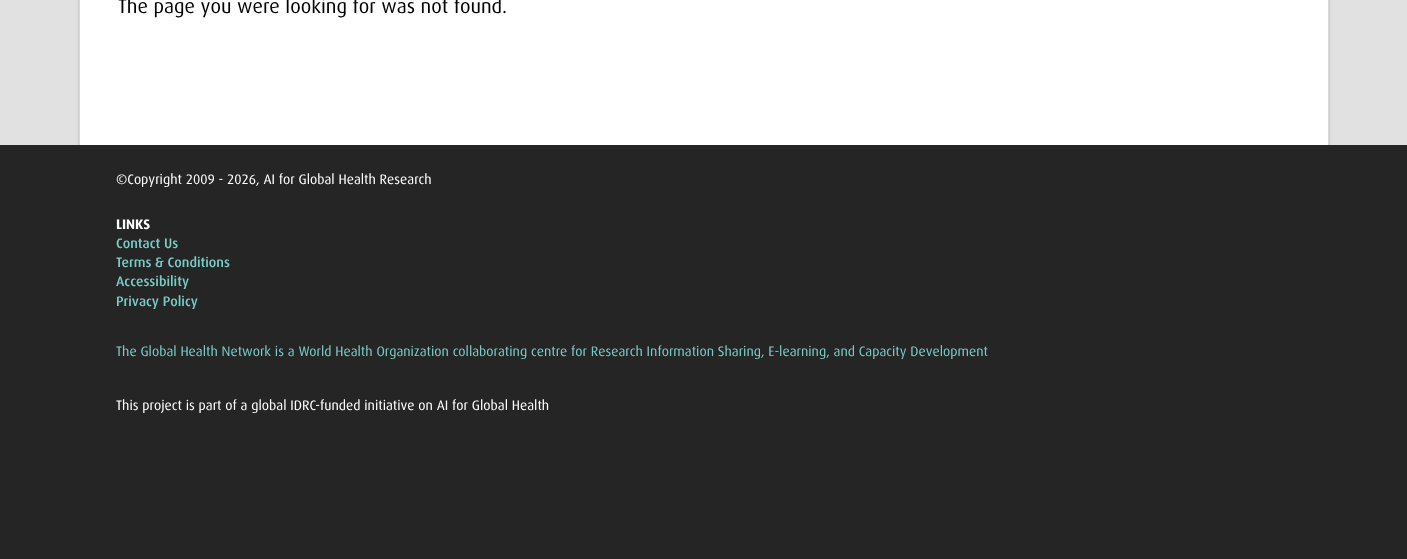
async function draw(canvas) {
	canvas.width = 1407;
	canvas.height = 559;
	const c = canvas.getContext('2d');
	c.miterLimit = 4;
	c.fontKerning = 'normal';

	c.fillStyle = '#e1e1e1';
	c.fillRect(0, 0, 1407, 559);
	c.fillStyle = '#00000033';
	c.filter = 'blur(1px)';
	c.beginPath();
	c.rect(79, -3, 1250, 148);
	c.fill();
	c.filter = 'none';
	for (const [x, y, w, h, color] of [
		[80, 0, 1248, 145, '#fff'],
		[1328, 0, 1, 145, '#d7d7d7'],
		[79, 0, 1, 145, '#d7d7d7'],
	]) {
		c.fillStyle = color;
		c.fillRect(x, y, w, h);
	}
	c.font = '20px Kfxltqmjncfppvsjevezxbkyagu';
	c.fillStyle = '#000';
	c.fillText('The page you were looking for was not found.', 118, 13);
	c.fillStyle = '#252525';
	c.fillRect(0, 145, 1407, 414);
	c.font = '13.75px Kfxltqmjncfppvsjevezxbkyagu';
	c.fillStyle = '#fff';
	c.fillText('©Copyright 2009 - 2026, AI for Global Health Research', 116, 184);
	c.font = 'bold 13.75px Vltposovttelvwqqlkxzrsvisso';
	c.fillText('LINKS', 116, 229);
	c.font = '500 13.75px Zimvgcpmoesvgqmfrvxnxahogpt';
	c.fillStyle = '#79ccc6';
	for (const [text, x, y] of [
		['Contact Us', 116, 248],
		['Terms & Conditions', 116, 267],
		['Accessibility', 116, 286],
		['Privacy Policy', 116, 306],
	]) {
		c.fillText(text, x, y);
	}
	c.font = '13.75px Kfxltqmjncfppvsjevezxbkyagu';
	c.fillText('The Global Health Network is a World Health Organization collaborating centre for Research Information Sharing, E-learning, and Capacity Development', 116, 356);
	c.fillStyle = '#fff';
	c.fillText('This project is part of a global IDRC-funded initiative on AI for Global Health', 116, 410);
}

draw(document.querySelector('canvas'));
